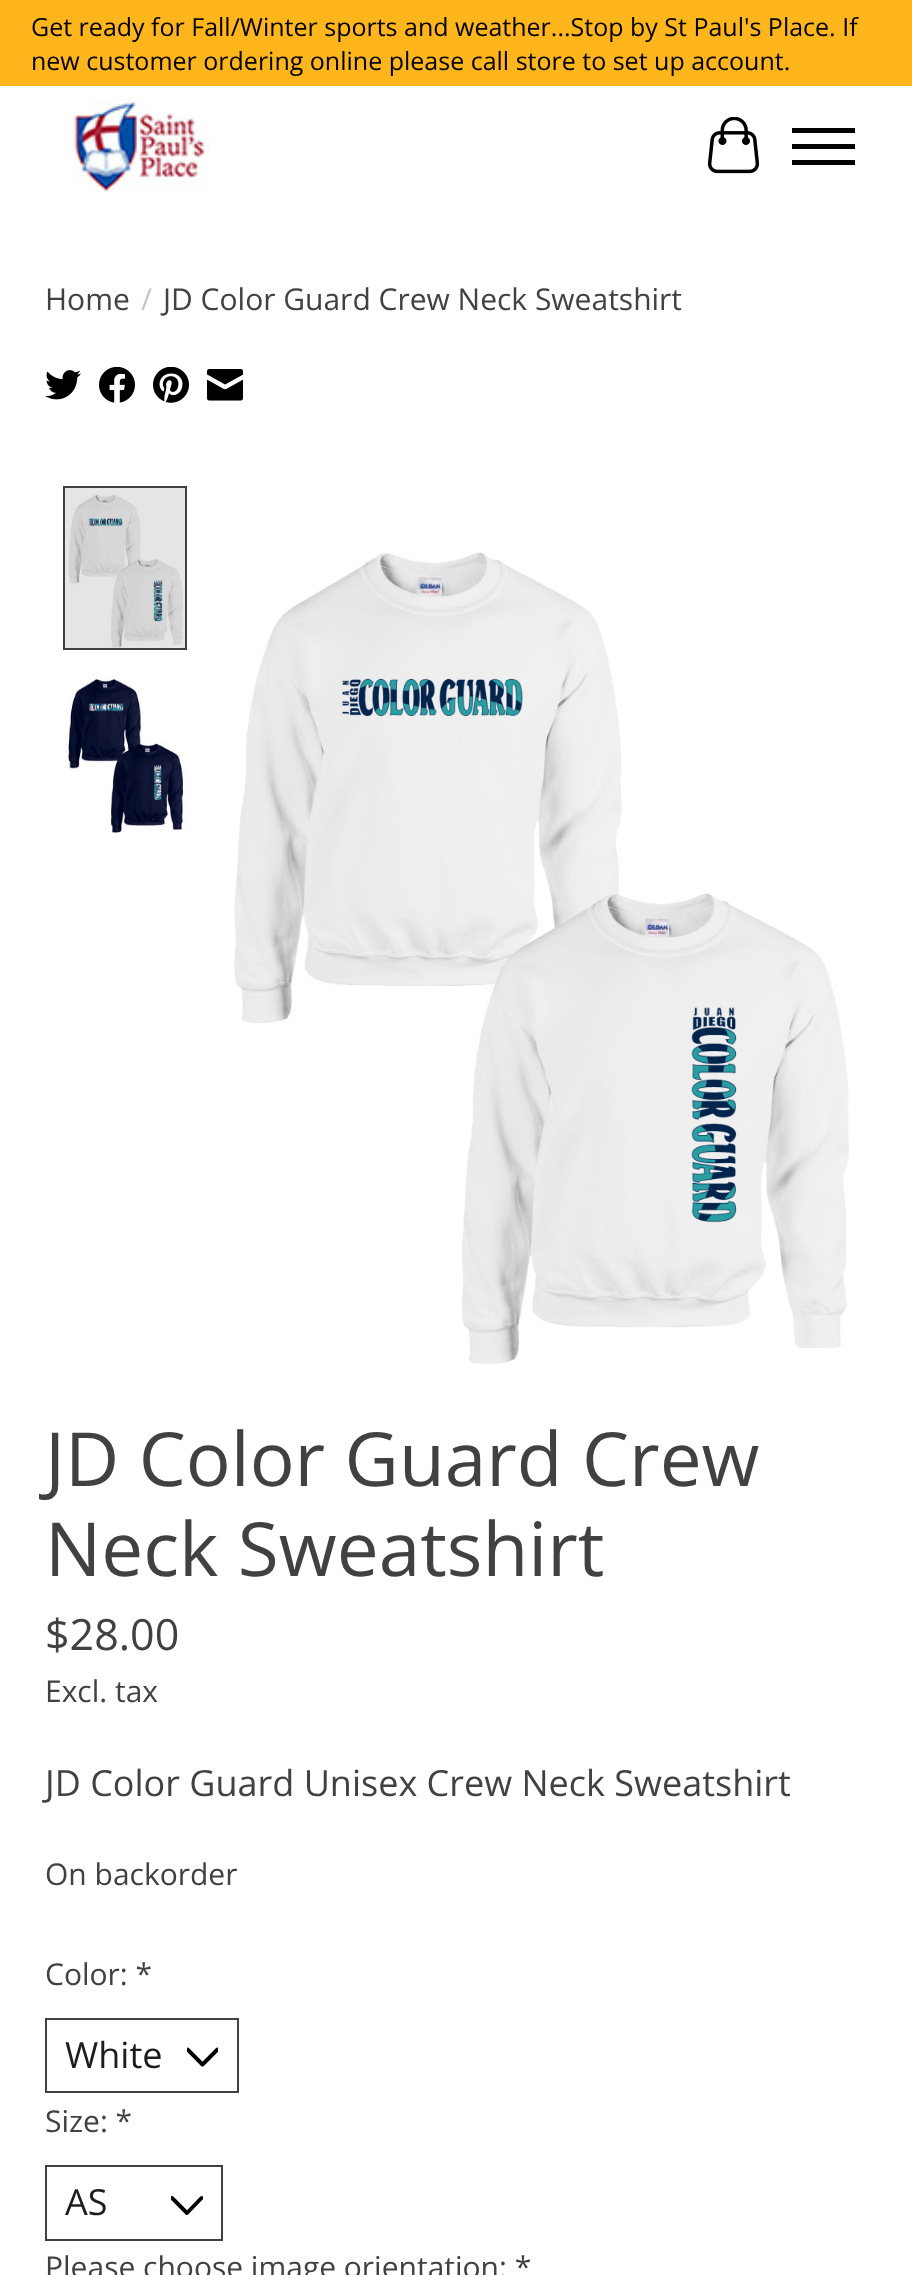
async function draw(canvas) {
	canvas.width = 912;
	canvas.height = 2275;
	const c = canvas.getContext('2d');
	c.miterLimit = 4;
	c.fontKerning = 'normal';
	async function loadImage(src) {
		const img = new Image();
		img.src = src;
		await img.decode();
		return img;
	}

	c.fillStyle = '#fff';
	c.fillRect(0, 0, 912, 2275);
	c.fillStyle = '#e6e6e6';
	c.fillRect(65, 488, 120, 160);
	c.fillStyle = '#ffb51c';
	c.fillRect(0, 0, 912, 86);
	c.font = '25px Open Sans';
	c.fillStyle = '#000';
	c.fillText('Get ready for Fall/Winter sports and weather...Stop by St Paul\'s Place. If', 31, 36);
	c.fillText('new customer ordering online please call store to set up account.', 31, 70);
	c.drawImage(await loadImage('img1.png'), 74, 99, 135, 94);
	c.drawImage(await loadImage('img2.png'), 707, 117, 53, 57);
	for (const [x, y, w, h, color] of [
		[792, 144, 63, 5, '#000'],
		[792, 128, 63, 5, '#000'],
		[792, 160, 63, 5, '#000'],
	]) {
		c.fillStyle = color;
		c.fillRect(x, y, w, h);
	}
	c.font = '30px Open Sans';
	c.fillStyle = '#414141';
	c.fillText('Home', 45, 310);
	c.fillStyle = '#c6c6c6';
	c.fillText('/', 141, 310);
	c.fillStyle = '#414141';
	c.fillText('JD Color Guard Crew Neck Sweatshirt', 163, 310);
	c.drawImage(await loadImage('img3.png'), 45, 370, 36, 30);
	c.drawImage(await loadImage('img4.png'), 99, 367, 36, 36);
	c.drawImage(await loadImage('img5.png'), 153, 367, 36, 36);
	c.drawImage(await loadImage('img6.png'), 207, 369, 36, 32);
	c.drawImage(await loadImage('img7.png'), 68, 494, 115, 154);
	c.strokeStyle = '#414141';
	c.lineWidth = 2;
	c.strokeRect(64, 487, 122, 162);
	c.drawImage(await loadImage('img8.png'), 65, 677, 122, 160);
	c.drawImage(await loadImage('img9.png'), 234, 552, 615, 813);
	c.font = '74.75px Open Sans';
	c.fillText('JD Color Guard Crew', 45, 1486);
	c.fillText('Neck Sweatshirt', 45, 1576);
	c.font = '43px Open Sans';
	c.fillText('$28.00', 45, 1650);
	c.font = '30px Open Sans';
	c.fillText('Excl. tax', 45, 1702);
	c.font = '36px Open Sans';
	c.fillText('JD Color Guard Unisex Crew Neck Sweatshirt', 45, 1796);
	c.font = '30px Open Sans';
	c.fillText('On backorder', 45, 1885);
	c.fillText('Color: *', 45, 1985);
	c.save();
	c.beginPath();
	c.rect(187, 2041, 31, 31);
	c.clip();
	c.beginPath();
	c.moveTo(217.5, 2049.5);
	c.lineTo(202.5, 2064.5);
	c.lineTo(187.5, 2049.5);
	c.strokeStyle = '#000';
	c.lineWidth = 3.9;
	c.lineCap = 'round';
	c.lineJoin = 'round';
	c.stroke();
	c.restore();
	c.strokeRect(46, 2019, 192, 73);
	c.font = '36px Open Sans';
	c.fillStyle = '#1c1c21';
	c.fillText('White', 65, 2068);
	c.font = '30px Open Sans';
	c.fillStyle = '#414141';
	c.fillText('Size: *', 45, 2132);
	c.save();
	c.beginPath();
	c.rect(171, 2189, 32, 32);
	c.clip();
	c.beginPath();
	c.moveTo(201.5, 2198);
	c.lineTo(187, 2213);
	c.lineTo(172, 2198);
	c.strokeStyle = '#000';
	c.lineWidth = 3.9;
	c.lineCap = 'round';
	c.lineJoin = 'round';
	c.stroke();
	c.restore();
	c.strokeRect(46, 2166, 176, 74);
	c.font = '36px Open Sans';
	c.fillStyle = '#1c1c21';
	c.fillText('AS', 65, 2215);
	c.font = '30px Open Sans';
	c.fillStyle = '#414141';
	c.fillText('Please choose image orientation: *', 45, 2278);
}

draw(document.querySelector('canvas'));
